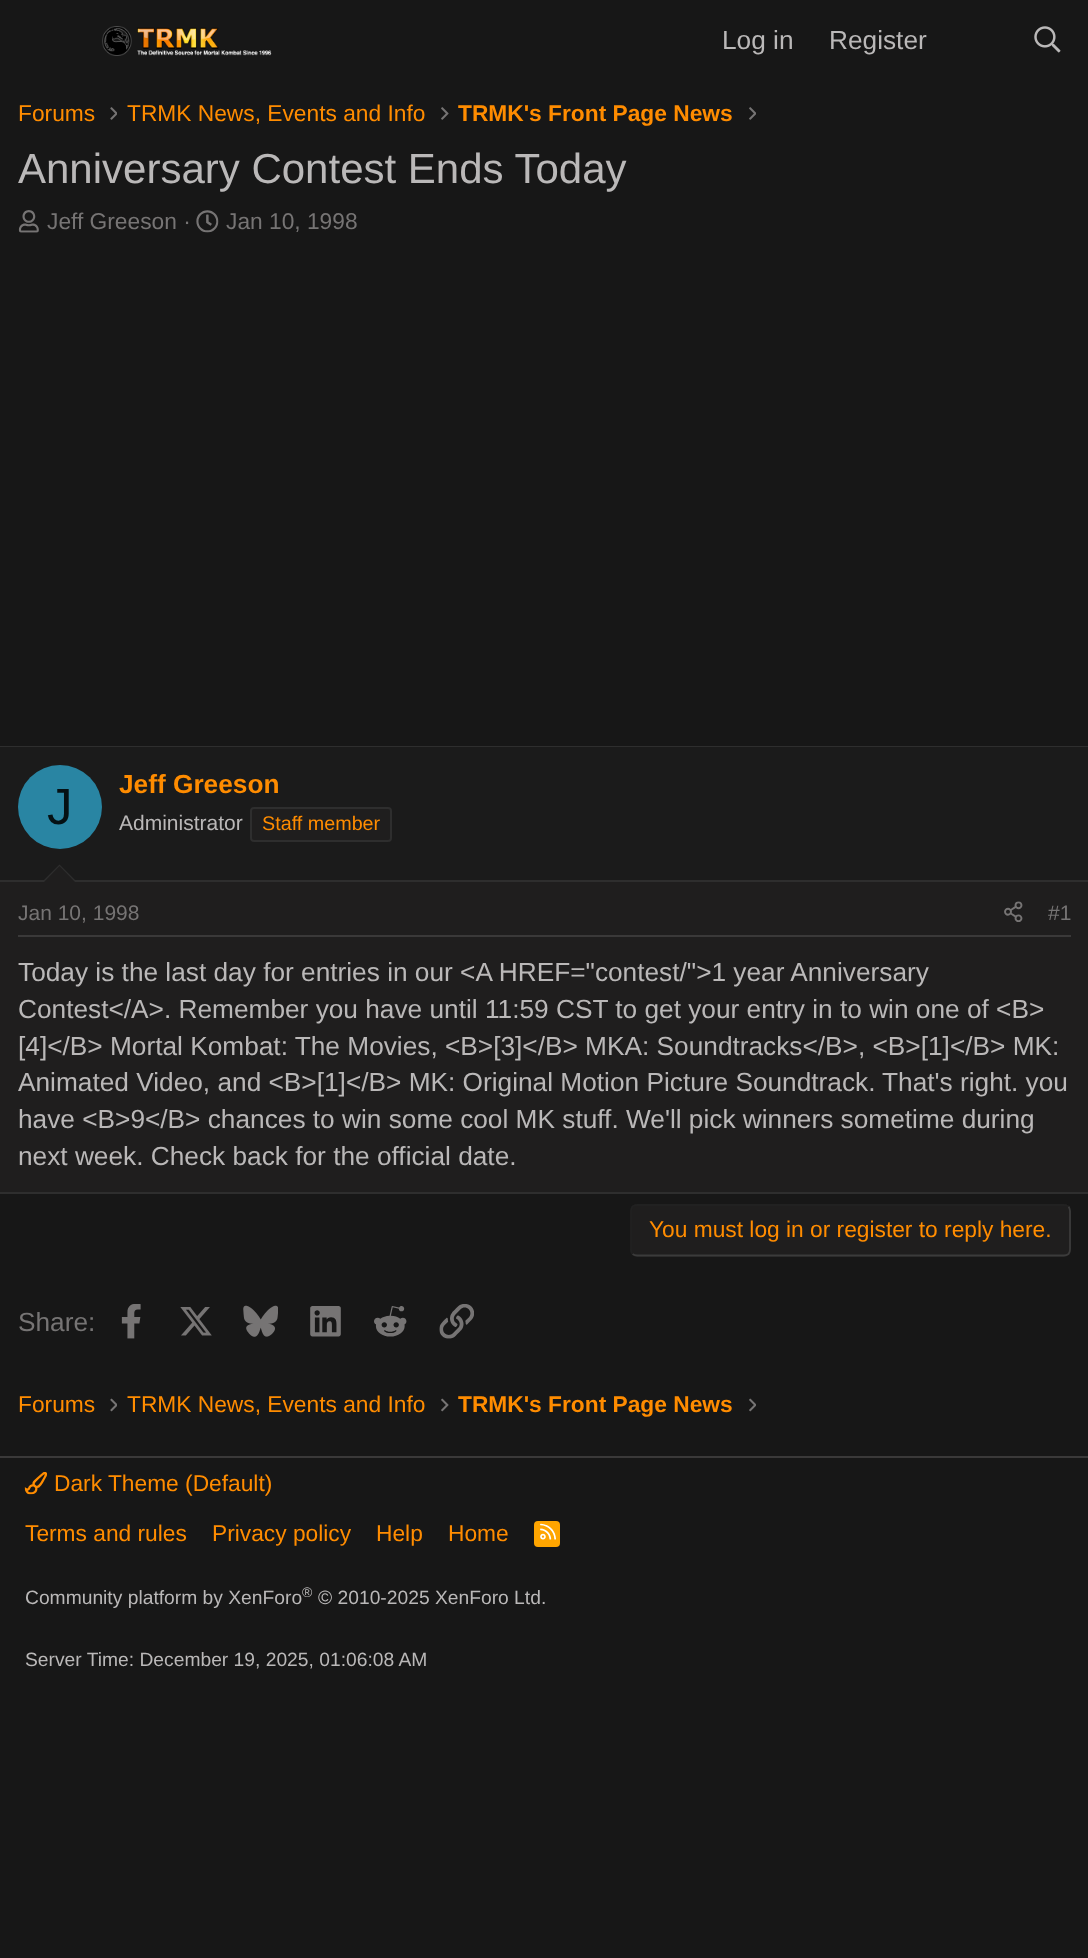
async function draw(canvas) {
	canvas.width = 1088;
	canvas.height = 1958;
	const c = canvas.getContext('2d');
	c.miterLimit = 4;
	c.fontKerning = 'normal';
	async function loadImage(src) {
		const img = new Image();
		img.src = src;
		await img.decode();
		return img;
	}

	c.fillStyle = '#171717';
	c.fillRect(0, 0, 1088, 1958);
	c.drawImage(await loadImage('img1.png'), 102, 26, 170, 30);
	c.font = '26.25px Liberation Sans';
	c.fillStyle = '#bab8b8';
	c.fillText('Log in', 722, 49);
	c.fillText('Register', 829, 49);
	c.drawImage(await loadImage('img2.png'), 1034, 26, 27, 27);
	c.font = '22.75px Liberation Sans';
	c.fillStyle = '#ff8c00';
	c.fillText('Forums', 18, 121);
	c.drawImage(await loadImage('img3.png'), 110, 107, 7, 13);
	c.fillText('TRMK News, Events and Info', 127, 121);
	c.drawImage(await loadImage('img4.png'), 441, 107, 8, 13);
	c.font = 'bold 22.75px Liberation Sans';
	c.fillText('TRMK\'s Front Page News', 458, 121);
	c.drawImage(await loadImage('img5.png'), 749, 107, 7, 13);
	c.font = '42px Liberation Sans';
	c.fillStyle = '#bab8b8';
	c.fillText('Anniversary Contest Ends Today', 18, 183);
	c.drawImage(await loadImage('img6.png'), 18, 210, 21, 23);
	c.font = '22.75px Liberation Sans';
	c.fillStyle = '#767474';
	c.fillText('Jeff Greeson ·', 47, 229);
	c.drawImage(await loadImage('img7.png'), 196, 210, 23, 23);
	c.fillText('Jan 10, 1998', 226, 229);
	for (const [x, y, w, h, color] of [
		[0, 882, 1088, 310, '#1f1e1e'],
		[0, 746, 1088, 1, '#2e2e2e'],
		[0, 1192, 1088, 2, '#2e2e2e'],
		[0, 747, 1088, 133, '#1b1b1b'],
		[0, 880, 1088, 2, '#2e2e2e'],
	]) {
		c.fillStyle = color;
		c.fillRect(x, y, w, h);
	}
	c.fillStyle = '#2985a3';
	c.beginPath();
	c.arc(60, 807, 42, 0, 2 * Math.PI);
	c.fill();
	c.font = '51px Liberation Sans';
	c.fillStyle = '#051114';
	c.fillText('J', 47, 824);
	c.font = 'bold 26.25px Liberation Sans';
	c.fillStyle = '#ff8c00';
	c.fillText('Jeff Greeson', 119, 793);
	c.font = '21px Liberation Sans';
	c.fillStyle = '#bab8b8';
	c.fillText('Administrator', 119, 830);
	c.fillStyle = '#1f1e1e';
	c.beginPath();
	c.roundRect(251, 808, 140, 33, 3);
	c.fill();
	c.strokeStyle = '#2e2e2e';
	c.lineWidth = 2;
	c.stroke();
	c.font = '19.75px Liberation Sans';
	c.fillStyle = '#ff8c00';
	c.fillText('Staff member', 262, 830);
	c.fillStyle = '#2e2e2e';
	c.beginPath();
	c.moveTo(77, 882);
	c.lineTo(42, 882);
	c.lineTo(59.5, 864.5);
	c.closePath();
	c.fill();
	c.fillStyle = '#1f1e1e';
	c.beginPath();
	c.moveTo(75, 882);
	c.lineTo(44, 882);
	c.lineTo(59.5, 866);
	c.closePath();
	c.fill();
	c.fillStyle = '#3a3939';
	c.fillRect(18, 935, 1053, 2);
	c.font = '21px Liberation Sans';
	c.fillStyle = '#767474';
	c.fillText('Jan 10, 1998', 18, 920);
	c.drawImage(await loadImage('img8.png'), 1004, 901, 19, 21);
	c.fillText('#1', 1048, 920);
	c.font = '26.25px Liberation Sans';
	c.fillStyle = '#bab8b8';
	for (const [text, x, y] of [
		['Today is the last day for entries in our <A HREF="contest/">1 year Anniversary', 18, 981],
		['Contest<\/A>. Remember you have until 11:59 CST to get your entry in to win one of <B>', 18, 1018],
		['[4]<\/B> Mortal Kombat: The Movies, <B>[3]<\/B> MKA: Soundtracks<\/B>, <B>[1]<\/B> MK:', 18, 1055],
		['Animated Video, and <B>[1]<\/B> MK: Original Motion Picture Soundtrack.', 18, 1091],
		['That\'s right. you', 882, 1091],
		['have <B>9<\/B> chances to win some cool MK stuff. We\'ll pick winners sometime during', 18, 1128],
		['next week. Check back for the official date.', 18, 1165],
	]) {
		c.fillText(text, x, y);
	}
	c.fillStyle = '#1f1e1e';
	c.beginPath();
	c.roundRect(630, 1204, 441, 53, 7);
	c.fill();
	c.beginPath();
	c.moveTo(1068.5, 1206.5);
	c.bezierCurveTo(1069.5, 1208, 1070, 1209.5, 1070, 1211);
	c.lineTo(1070, 1249.5);
	c.bezierCurveTo(1070, 1251, 1069.5, 1252.5, 1068.5, 1254);
	c.bezierCurveTo(1067, 1255, 1065.5, 1255.5, 1064, 1255.5);
	c.lineTo(637, 1255.5);
	c.bezierCurveTo(635.5, 1255.5, 634, 1255, 632.5, 1254);
	c.strokeStyle = '#3b3b3b';
	c.lineWidth = 1.8;
	c.stroke();
	c.beginPath();
	c.moveTo(632.5, 1254);
	c.bezierCurveTo(631.5, 1252.5, 631, 1251, 631, 1249.5);
	c.lineTo(631, 1211);
	c.bezierCurveTo(631, 1209.5, 631.5, 1208, 632.5, 1206.5);
	c.bezierCurveTo(634, 1205.5, 635.5, 1205, 637, 1205);
	c.lineTo(1064, 1205);
	c.bezierCurveTo(1065.5, 1205, 1067, 1205.5, 1068.5, 1206.5);
	c.strokeStyle = '#212121';
	c.stroke();
	c.font = '22.75px Liberation Sans';
	c.fillStyle = '#ff8c00';
	c.fillText('You must log in or register to reply here.', 649, 1237);
	c.font = '26.25px Liberation Sans';
	c.fillStyle = '#767474';
	c.fillText('Share:', 18, 1331);
	c.drawImage(await loadImage('img9.png'), 121, 1304, 20, 35);
	c.drawImage(await loadImage('img10.png'), 180, 1307, 32, 29);
	c.drawImage(await loadImage('img11.png'), 243, 1305, 35, 32);
	c.drawImage(await loadImage('img12.png'), 310, 1306, 31, 31);
	c.drawImage(await loadImage('img13.png'), 374, 1306, 33, 31);
	c.drawImage(await loadImage('img14.png'), 439, 1304, 35, 35);
	c.font = '22.75px Liberation Sans';
	c.fillStyle = '#ff8c00';
	c.fillText('Forums', 18, 1412);
	c.drawImage(await loadImage('img15.png'), 110, 1398, 7, 14);
	c.fillText('TRMK News, Events and Info', 127, 1412);
	c.drawImage(await loadImage('img16.png'), 441, 1398, 8, 14);
	c.font = 'bold 22.75px Liberation Sans';
	c.fillText('TRMK\'s Front Page News', 458, 1412);
	c.drawImage(await loadImage('img17.png'), 749, 1398, 7, 14);
	c.fillStyle = '#3a3939';
	c.fillRect(0, 1456, 1088, 2);
	c.drawImage(await loadImage('img18.png'), 24, 1472, 23, 23);
	c.font = '22.75px Liberation Sans';
	c.fillStyle = '#ff8c00';
	for (const [text, x, y] of [
		['Dark Theme (Default)', 54, 1491],
		['Terms and rules', 25, 1541],
		['Privacy policy', 212, 1541],
		['Help', 376, 1541],
		['Home', 448, 1541],
	]) {
		c.fillText(text, x, y);
	}
	c.fillStyle = '#ffa500';
	c.beginPath();
	c.roundRect(534, 1521, 26, 26, 4);
	c.fill();
	c.drawImage(await loadImage('img19.png'), 540, 1523, 16, 17);
	c.font = '19.25px Liberation Sans';
	c.fillStyle = '#bab8b8';
	c.fillText('Community platform by XenForo', 25, 1604);
	c.font = '14px Liberation Sans';
	c.fillText('®', 302, 1597);
	c.font = '19.25px Liberation Sans';
	c.fillText('© 2010-2025 XenForo Ltd.', 318, 1604);
	c.fillText('Server Time: December 19, 2025, 01:06:08 AM', 25, 1666);
}

draw(document.querySelector('canvas'));
